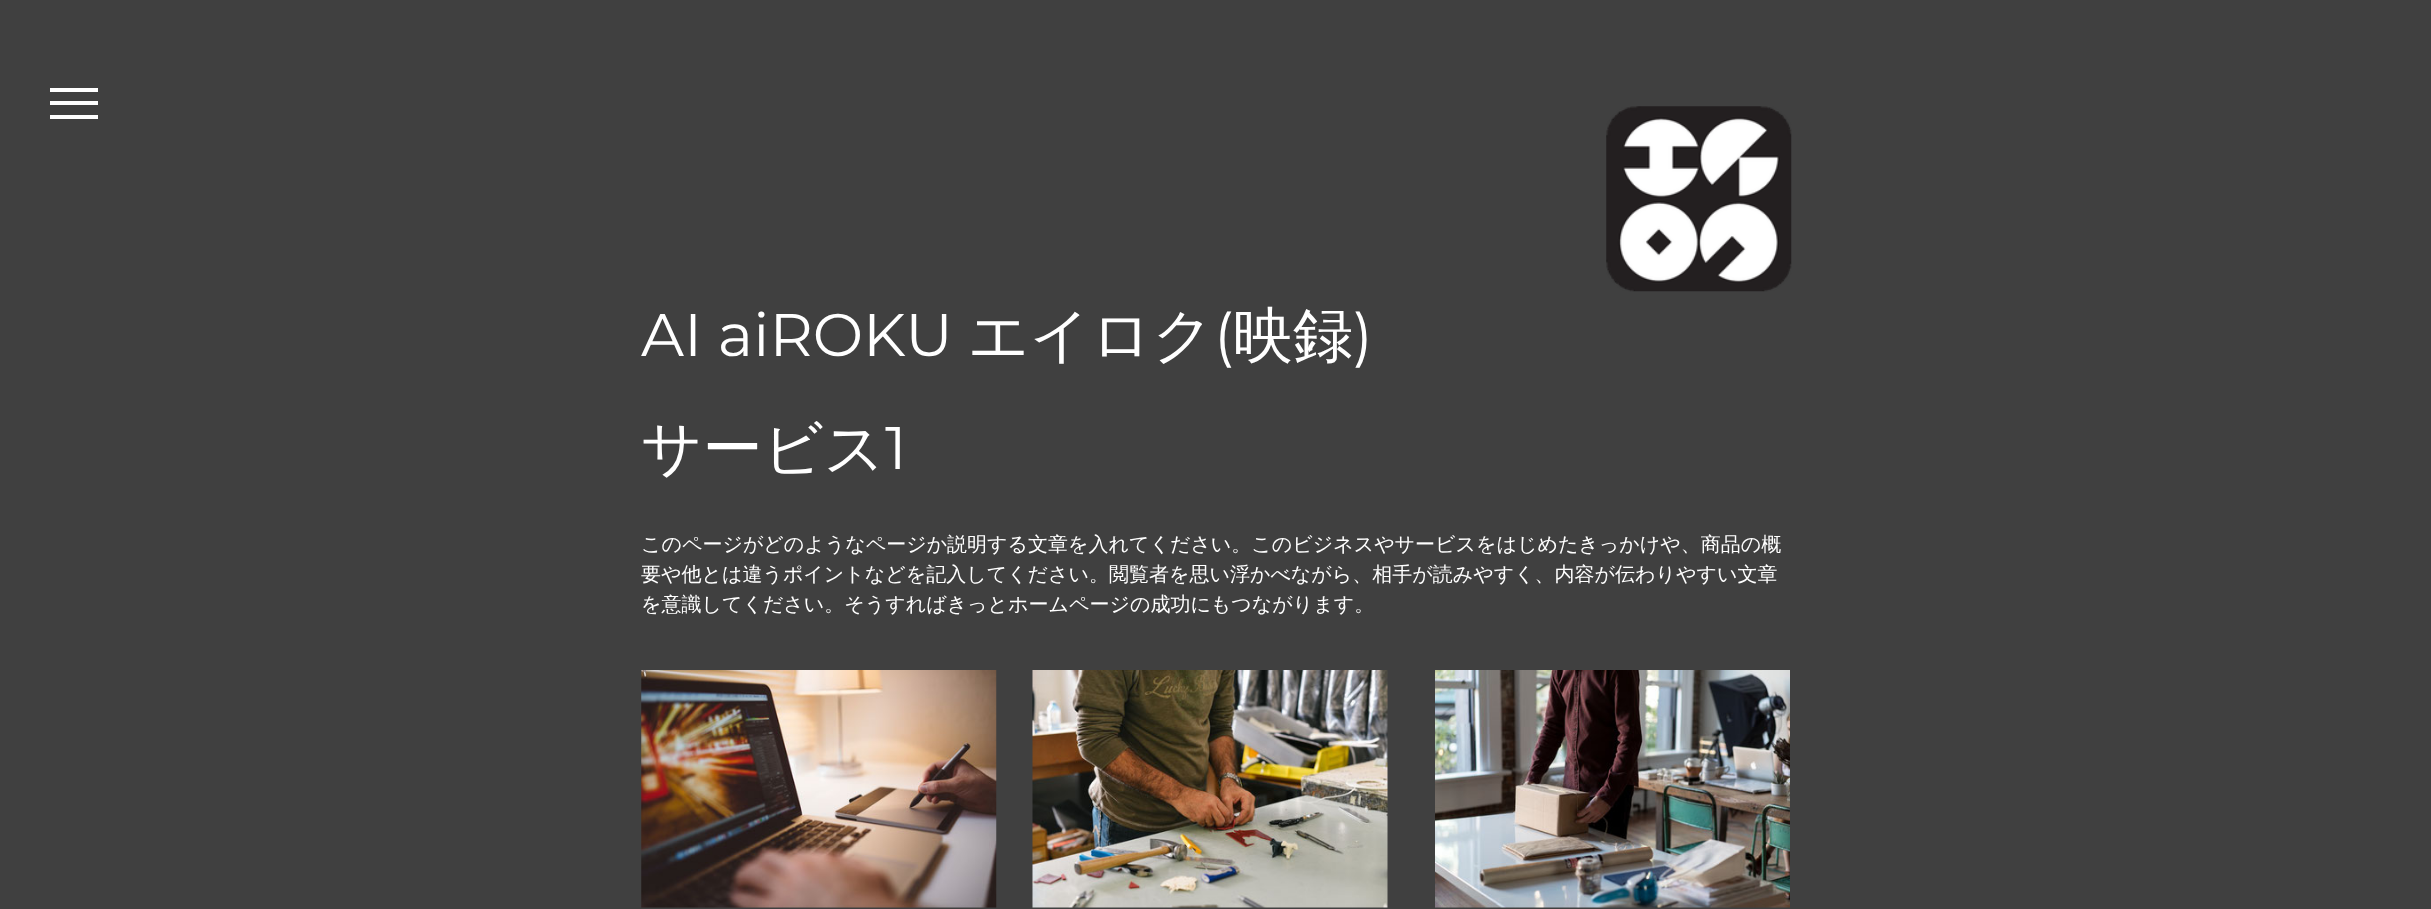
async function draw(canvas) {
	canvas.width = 2431;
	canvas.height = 909;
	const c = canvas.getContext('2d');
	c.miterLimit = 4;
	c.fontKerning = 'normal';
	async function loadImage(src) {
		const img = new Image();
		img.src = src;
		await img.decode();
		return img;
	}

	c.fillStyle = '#404040';
	c.fillRect(0, 0, 2431, 909);
	for (const [x, y, w, h, color] of [
		[50, 101, 48, 4, '#fff'],
		[50, 88, 48, 4, '#fff'],
		[50, 115, 48, 4, '#fff'],
	]) {
		c.fillStyle = color;
		c.fillRect(x, y, w, h);
	}
	c.drawImage(await loadImage('img1.png'), 1606, 106, 186, 186);
	c.font = '100 60px Montserrat';
	c.fillText('AI aiROKU', 641, 356);
	c.font = '500 60px WenQuanYi Zen Hei';
	c.fillText('エイロク', 968, 356);
	c.font = '100 60px Montserrat';
	c.fillText('(', 1214, 356);
	c.font = '500 60px WenQuanYi Zen Hei';
	c.fillText('映録', 1233, 356);
	c.font = '100 60px Montserrat';
	c.fillText(')', 1353, 356);
	c.font = '500 60px WenQuanYi Zen Hei';
	c.fillText('サービス', 641, 469);
	c.font = '100 60px Montserrat';
	c.fillText('1', 885, 469);
	c.font = '500 20px WenQuanYi Zen Hei';
	for (const [text, x, y] of [
		['このページがどのようなページか説明する文章を入れてください。このビジネスやサービスをはじめたきっかけや、商品の概', 641, 551],
		['要や他とは違うポイントなどを記入してください。閲覧者を思い浮かべながら、相手が読みやすく、内容が伝わりやすい文章', 641, 581],
		['を意識してください。そうすればきっとホームページの成功にもつながります。', 641, 611],
	]) {
		c.fillText(text, x, y);
	}
	c.drawImage(await loadImage('img2.png'), 641, 670, 356, 238);
	c.drawImage(await loadImage('img3.png'), 1032, 670, 356, 238);
	c.drawImage(await loadImage('img4.png'), 1435, 670, 355, 238);
}

draw(document.querySelector('canvas'));
